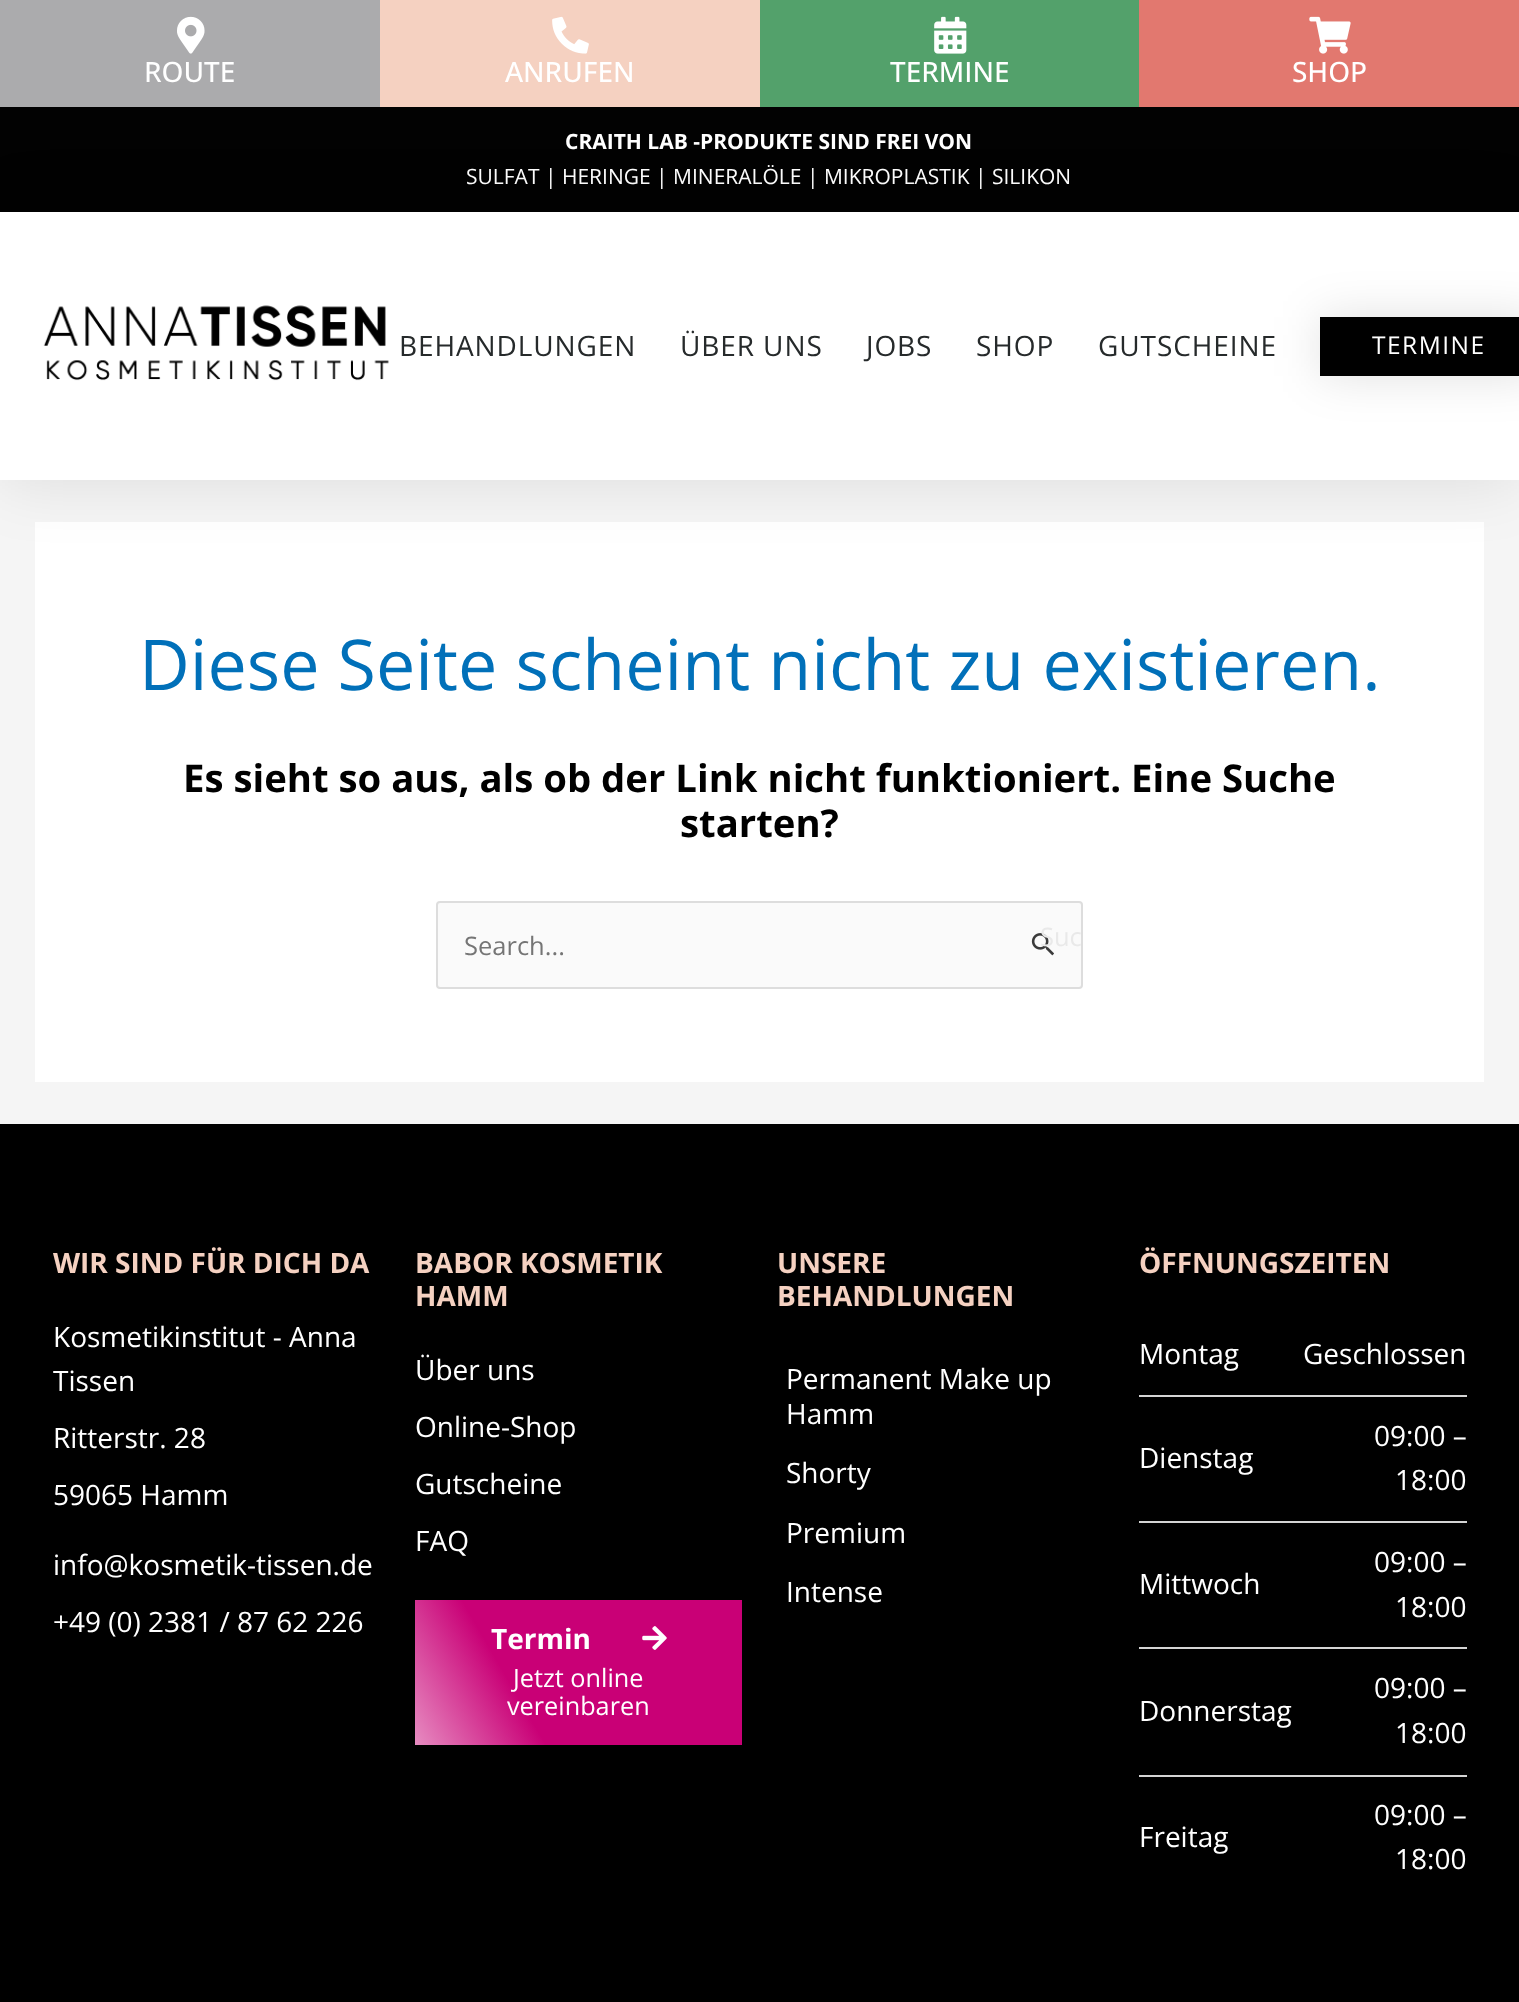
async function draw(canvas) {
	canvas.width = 1519;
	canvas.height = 2002;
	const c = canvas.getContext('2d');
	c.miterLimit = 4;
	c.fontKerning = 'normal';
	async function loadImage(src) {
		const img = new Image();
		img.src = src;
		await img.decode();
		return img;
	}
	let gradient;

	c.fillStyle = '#f5f5f5';
	c.fillRect(0, 0, 1519, 2002);
	c.fillStyle = '#ababad';
	c.fillRect(0, 0, 380, 107);
	c.drawImage(await loadImage('img1.png'), 177, 16, 28, 38);
	c.font = '500 28px Open Sans';
	c.fillStyle = '#fff';
	c.fillText('ROUTE', 144, 82);
	c.fillStyle = '#f5d1c1';
	c.fillRect(380, 0, 380, 107);
	c.drawImage(await loadImage('img2.png'), 552, 16, 37, 38);
	c.fillStyle = '#fff';
	c.fillText('ANRUFEN', 505, 82);
	c.fillStyle = '#53a16b';
	c.fillRect(760, 0, 379, 107);
	c.drawImage(await loadImage('img3.png'), 934, 16, 33, 38);
	c.fillStyle = '#fff';
	c.fillText('TERMINE', 890, 82);
	c.fillStyle = '#e2786f';
	c.fillRect(1139, 0, 380, 107);
	c.drawImage(await loadImage('img4.png'), 1309, 16, 42, 38);
	c.fillStyle = '#fff';
	c.fillText('SHOP', 1292, 82);
	c.fillStyle = '#020202';
	c.fillRect(0, 107, 1519, 105);
	c.font = 'bold 21px Open Sans';
	c.fillStyle = '#fff';
	c.fillText('CRAITH LAB -PRODUKTE SIND FREI VON', 565, 149);
	c.font = '21px Open Sans';
	c.fillText('SULFAT | HERINGE | MINERALÖLE | MIKROPLASTIK | SILIKON', 466, 184);
	c.fillRect(35, 522, 1449, 560);
	c.fillStyle = '#0000001a';
	c.filter = 'blur(33px)';
	c.beginPath();
	c.rect(0, 212, 1519, 268);
	c.fill();
	c.filter = 'none';
	c.fillStyle = '#fff';
	c.fillRect(0, 212, 1519, 268);
	c.drawImage(await loadImage('img5.png'), 43, 305, 346, 76);
	c.letterSpacing = '0.9px';
	c.font = '28px Open Sans';
	c.fillStyle = '#262a2b';
	for (const [text, x, y] of [
		['BEHANDLUNGEN', 399, 356],
		['ÜBER UNS', 680, 356],
		['JOBS', 866, 356],
		['SHOP', 976, 356],
	]) {
		c.fillText(text, x, y);
	}
	c.fillStyle = '#0000001f';
	c.filter = 'blur(23.5px)';
	c.beginPath();
	c.rect(1320, 317, 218, 59);
	c.fill();
	c.filter = 'none';
	c.fillStyle = '#262a2b';
	c.fillText('GUTSCHEINE', 1098, 356);
	c.fillStyle = '#000';
	c.fillRect(1320, 317, 199, 59);
	c.letterSpacing = '1.5px';
	c.font = '24.5px Open Sans';
	c.fillStyle = '#fff';
	c.fillText('TERMINE', 1372, 354);
	c.letterSpacing = '0px';
	c.font = '70px Open Sans';
	c.fillStyle = '#0170b9';
	c.fillText('Diese Seite scheint nicht zu existieren.', 139, 690);
	c.font = 'bold 38.3px Open Sans';
	c.fillStyle = '#000';
	c.fillText('Es sieht so aus, als ob der Link nicht funktioniert. Eine Suche', 183, 792);
	c.fillText('starten?', 680, 837);
	c.fillStyle = '#fafafa';
	c.beginPath();
	c.roundRect(437, 902, 645, 86, 3);
	c.fill();
	c.strokeStyle = '#ddd';
	c.lineWidth = 2;
	c.stroke();
	c.font = '25.5px Open Sans';
	c.fillStyle = '#757575';
	c.fillText('Search...', 464, 955);
	c.drawImage(await loadImage('img6.png'), 1031, 933, 23, 23);
	c.fillStyle = '#e9e9e9';
	c.fillText('Suc', 1040, 946);
	c.fillStyle = '#000';
	c.fillRect(0, 1124, 1519, 878);
	c.font = 'bold 28px Open Sans';
	c.fillStyle = '#f5d1c1';
	c.fillText('WIR SIND FÜR DICH DA', 53, 1273);
	c.font = '28px Open Sans';
	c.fillStyle = '#fff';
	for (const [text, x, y] of [
		['Kosmetikinstitut - Anna', 53, 1347],
		['Tissen', 53, 1391],
		['Ritterstr. 28', 53, 1448],
		['59065 Hamm', 53, 1505],
		['info@kosmetik-tissen.de', 53, 1575],
		['+49 (0) 2381 / 87 62 226', 53, 1632],
	]) {
		c.fillText(text, x, y);
	}
	c.font = 'bold 28px Open Sans';
	c.fillStyle = '#f5d1c1';
	c.fillText('BABOR KOSMETIK', 415, 1273);
	c.fillText('HAMM', 415, 1306);
	c.font = '28px Open Sans';
	c.fillStyle = '#fff';
	for (const [text, x, y] of [
		['Über uns', 415, 1380],
		['Online-Shop', 415, 1437],
		['Gutscheine', 415, 1494],
		['FAQ', 415, 1551],
	]) {
		c.fillText(text, x, y);
	}
	c.fillStyle = '#c90076';
	c.fillRect(462, 1600, 280, 145);
	c.save();
	c.beginPath();
	c.rect(415, 1600, 327, 145);
	c.clip();
	gradient = c.createLinearGradient(452, 1583, 201, 1729);
	gradient.addColorStop(0, '#c90076');
	gradient.addColorStop(0.5, '#efb3d6');
	gradient.addColorStop(1, '#c90076');
	c.fillStyle = gradient;
	c.beginPath();
	c.moveTo(289, 1300);
	c.lineTo(616, 1867);
	c.lineTo(364, 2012);
	c.lineTo(37, 1445);
	c.closePath();
	c.fill();
	c.restore();
	c.font = 'bold 28px Open Sans';
	c.fillStyle = '#fff';
	c.fillText('Termin', 491, 1649);
	c.drawImage(await loadImage('img7.png'), 642, 1626, 25, 24);
	c.font = '25.25px Open Sans';
	c.fillText('Jetzt online', 513, 1687);
	c.fillText('vereinbaren', 507, 1715);
	c.font = 'bold 28px Open Sans';
	c.fillStyle = '#f5d1c1';
	c.fillText('UNSERE', 777, 1273);
	c.fillText('BEHANDLUNGEN', 777, 1306);
	c.font = '28px Open Sans';
	c.fillStyle = '#fff';
	for (const [text, x, y] of [
		['Permanent Make up', 786, 1389],
		['Hamm', 786, 1424],
		['Shorty', 786, 1483],
		['Premium', 786, 1543],
		['Intense', 786, 1602],
	]) {
		c.fillText(text, x, y);
	}
	c.font = 'bold 28px Open Sans';
	c.fillStyle = '#f5d1c1';
	c.fillText('ÖFFNUNGSZEITEN', 1139, 1273);
	c.font = '28px Open Sans';
	c.fillStyle = '#fff';
	c.fillText('Montag', 1139, 1364);
	c.fillText('Geschlossen', 1303, 1364);
	c.fillStyle = '#d4d4d4';
	c.fillRect(1139, 1395, 328, 2);
	c.fillStyle = '#fff';
	for (const [text, x, y] of [
		['Dienstag', 1139, 1468],
		['09:00 –', 1374, 1446],
		['18:00', 1395, 1490],
	]) {
		c.fillText(text, x, y);
	}
	c.fillStyle = '#d4d4d4';
	c.fillRect(1139, 1521, 328, 2);
	c.fillStyle = '#fff';
	for (const [text, x, y] of [
		['Mittwoch', 1139, 1594],
		['09:00 –', 1374, 1572],
		['18:00', 1395, 1617],
	]) {
		c.fillText(text, x, y);
	}
	c.fillStyle = '#d4d4d4';
	c.fillRect(1139, 1647, 328, 2);
	c.fillStyle = '#fff';
	for (const [text, x, y] of [
		['Donnerstag', 1139, 1721],
		['09:00 –', 1374, 1698],
		['18:00', 1395, 1743],
	]) {
		c.fillText(text, x, y);
	}
	c.fillStyle = '#d4d4d4';
	c.fillRect(1139, 1775, 328, 2);
	c.fillStyle = '#fff';
	for (const [text, x, y] of [
		['Freitag', 1139, 1847],
		['09:00 –', 1374, 1825],
		['18:00', 1395, 1869],
	]) {
		c.fillText(text, x, y);
	}
}

draw(document.querySelector('canvas'));
